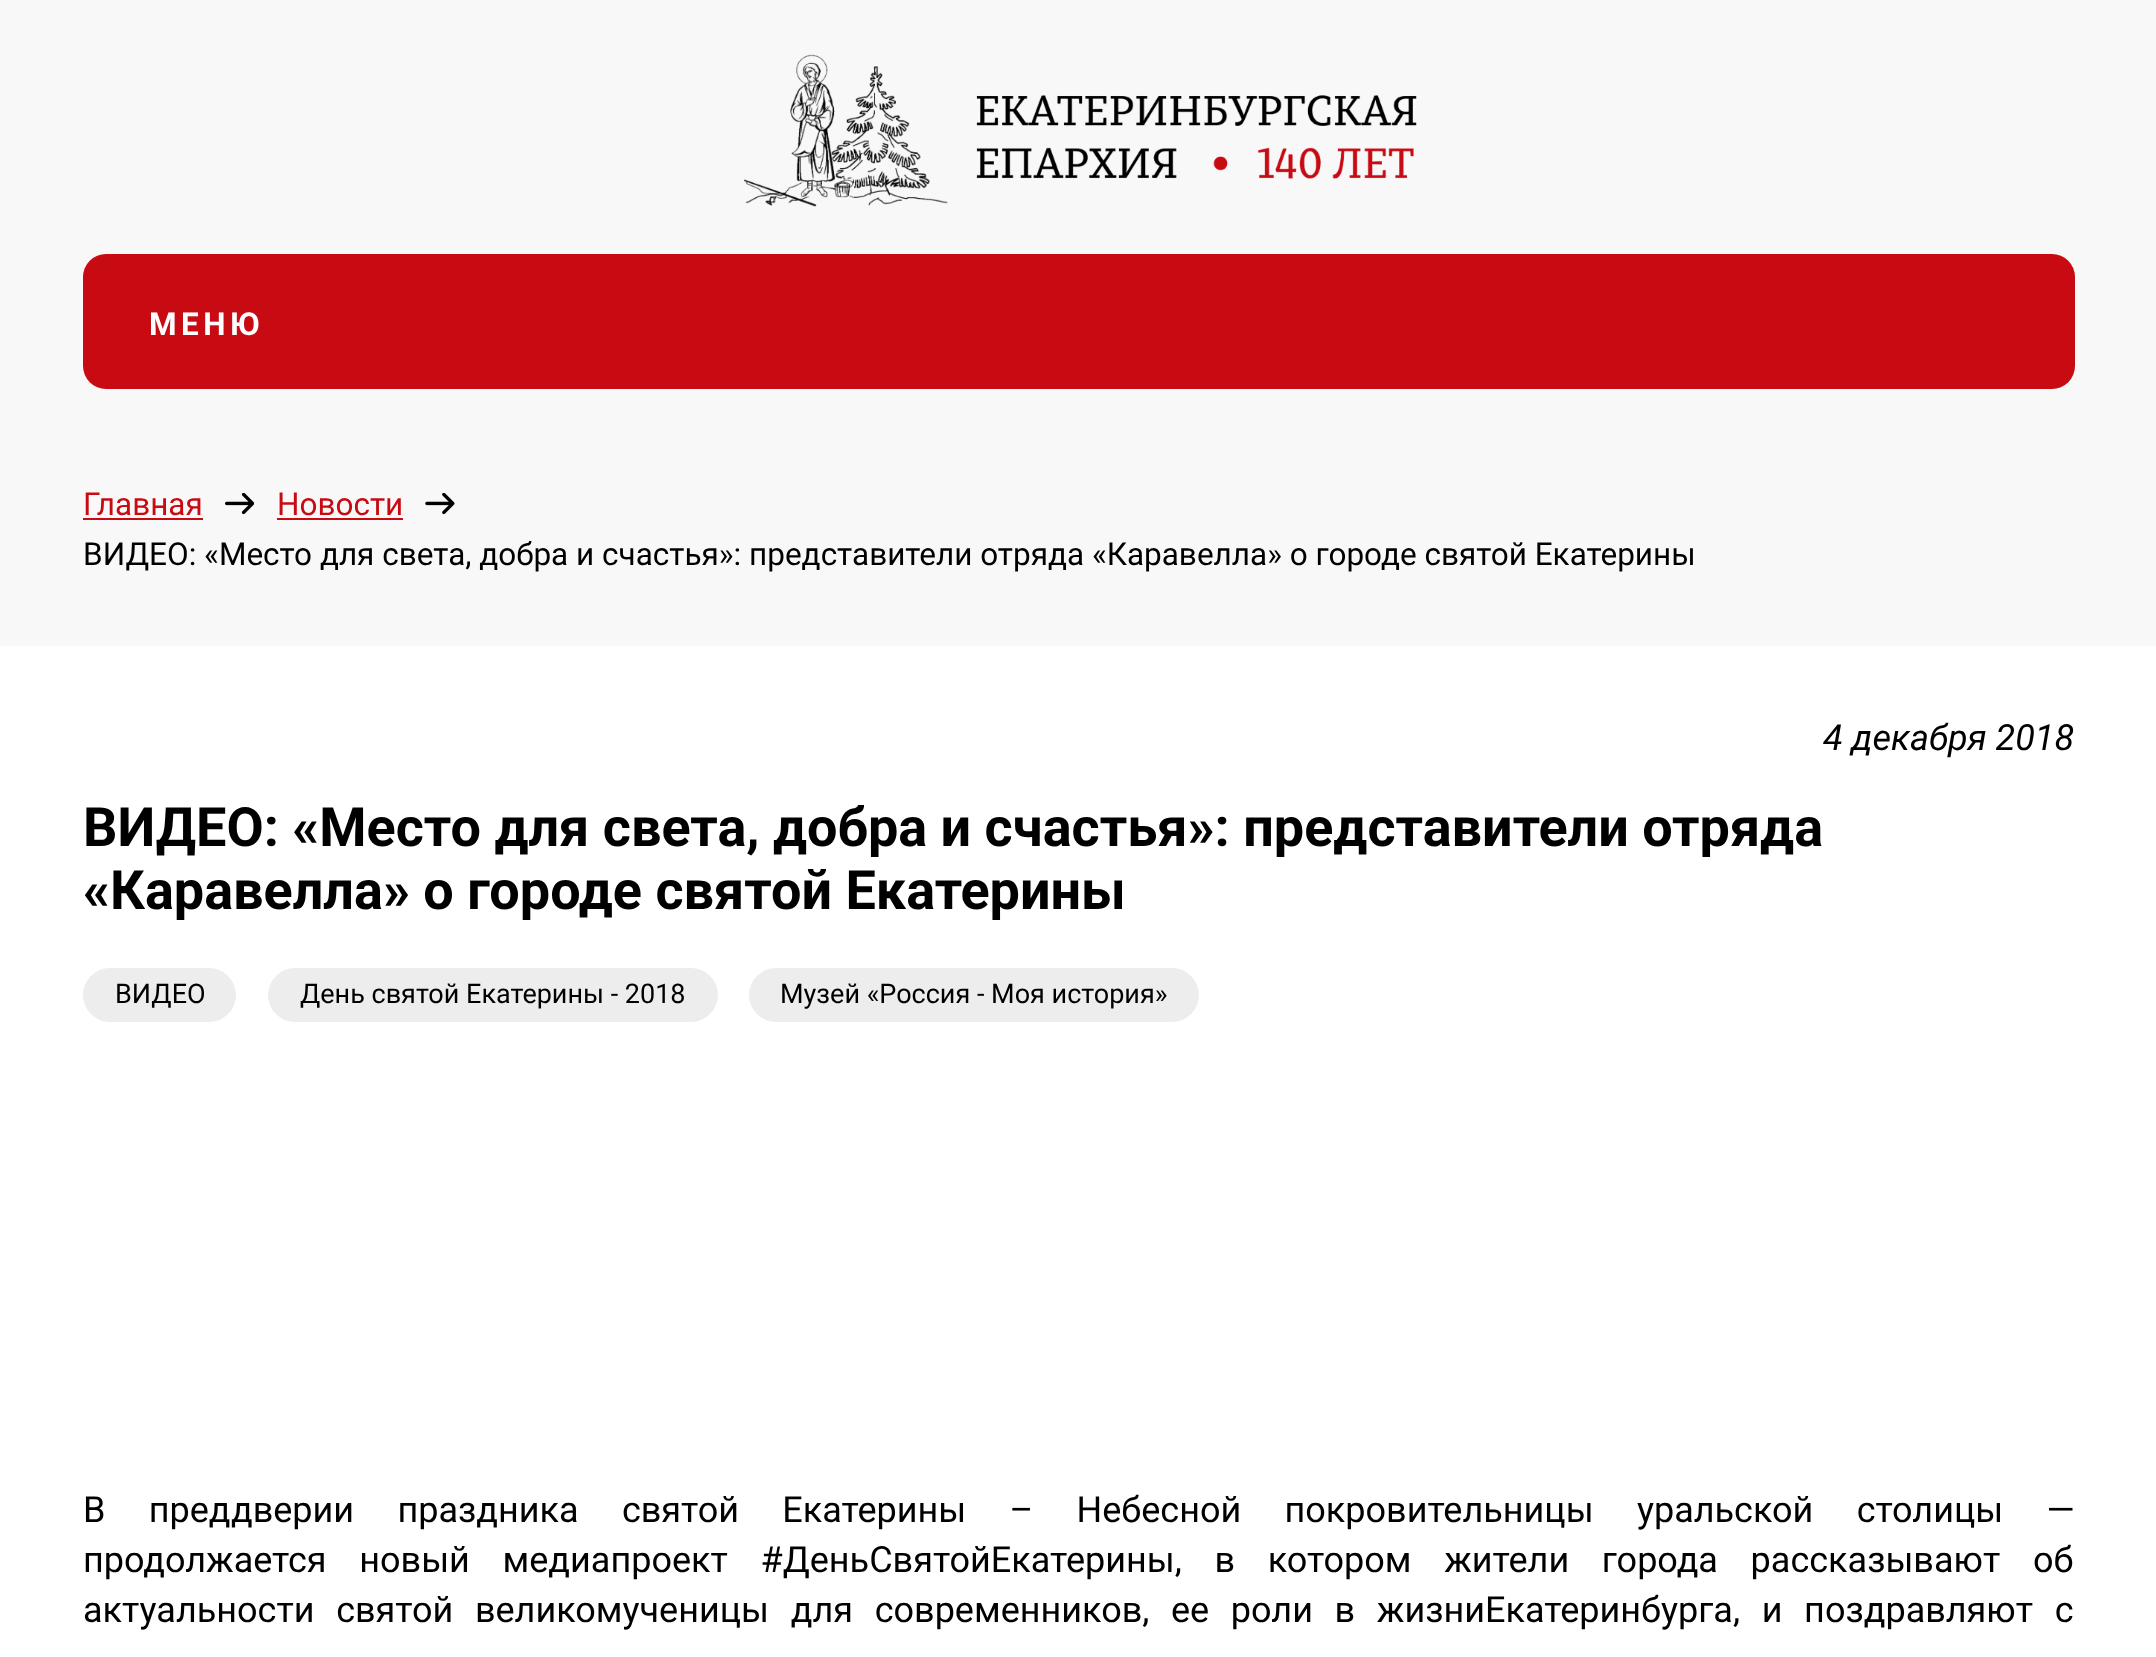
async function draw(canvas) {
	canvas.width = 2156;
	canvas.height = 1657;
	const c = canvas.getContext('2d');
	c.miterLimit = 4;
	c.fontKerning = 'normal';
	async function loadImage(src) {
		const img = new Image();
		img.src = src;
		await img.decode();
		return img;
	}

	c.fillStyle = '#f8f8f8';
	c.fillRect(0, 0, 2156, 1657);
	c.drawImage(await loadImage('img1.png'), 744, 54, 673, 153);
	c.fillStyle = '#c80b13';
	c.beginPath();
	c.roundRect(83, 254, 1992, 135, 23);
	c.fill();
	c.letterSpacing = '4.5px';
	c.font = 'bold 31.5px Roboto';
	c.fillStyle = '#fff';
	c.fillText('МЕНЮ', 149, 335);
	c.letterSpacing = '0px';
	c.font = '31.5px Roboto';
	c.fillStyle = '#c80b13';
	c.fillText('Главная', 83, 515);
	c.fillRect(83, 518, 120, 2);
	c.drawImage(await loadImage('img2.png'), 225, 493, 29, 22);
	c.fillText('Новости', 277, 515);
	c.fillRect(277, 518, 126, 2);
	c.drawImage(await loadImage('img3.png'), 425, 493, 30, 22);
	c.fillStyle = '#000';
	c.fillText('ВИДЕО: «Место для света, добра и счастья»: представители отряда «Каравелла» о городе святой Екатерины', 83, 565);
	c.fillStyle = '#fff';
	c.fillRect(0, 646, 2156, 1011);
	c.font = 'italic 36px Roboto';
	c.fillStyle = '#000';
	c.fillText('4 декабря 2018', 1823, 750);
	c.font = 'bold 54px Roboto';
	c.fillText('ВИДЕО: «Место для света, добра и счастья»: представители отряда', 83, 846);
	c.fillText('«Каравелла» о городе святой Екатерины', 83, 909);
	c.fillStyle = '#ededed';
	c.beginPath();
	c.roundRect(83, 968, 153, 54, 27);
	c.fill();
	c.font = '27px Roboto';
	c.fillStyle = '#000';
	c.fillText('ВИДЕО', 115, 1003);
	c.fillStyle = '#ededed';
	c.beginPath();
	c.roundRect(268, 968, 450, 54, 27);
	c.fill();
	c.fillStyle = '#000';
	c.fillText('День святой Екатерины - 2018', 300, 1003);
	c.fillStyle = '#ededed';
	c.beginPath();
	c.roundRect(749, 968, 450, 54, 27);
	c.fill();
	c.fillStyle = '#000';
	c.fillText('Музей «Россия - Моя история»', 780, 1003);
	c.wordSpacing = '34.4px';
	c.font = '36px Roboto';
	c.fillText('В преддверии праздника святой Екатерины – Небесной покровительницы уральской столицы —', 83, 1522);
	c.wordSpacing = '23.75px';
	c.fillText('продолжается новый медиапроект #ДеньСвятойЕкатерины, в котором жители города рассказывают об', 83, 1572);
	c.wordSpacing = '12.75px';
	c.fillText('актуальности святой великомученицы для современников, ее роли в жизниЕкатеринбурга, и поздравляют с', 83, 1622);
}

draw(document.querySelector('canvas'));
